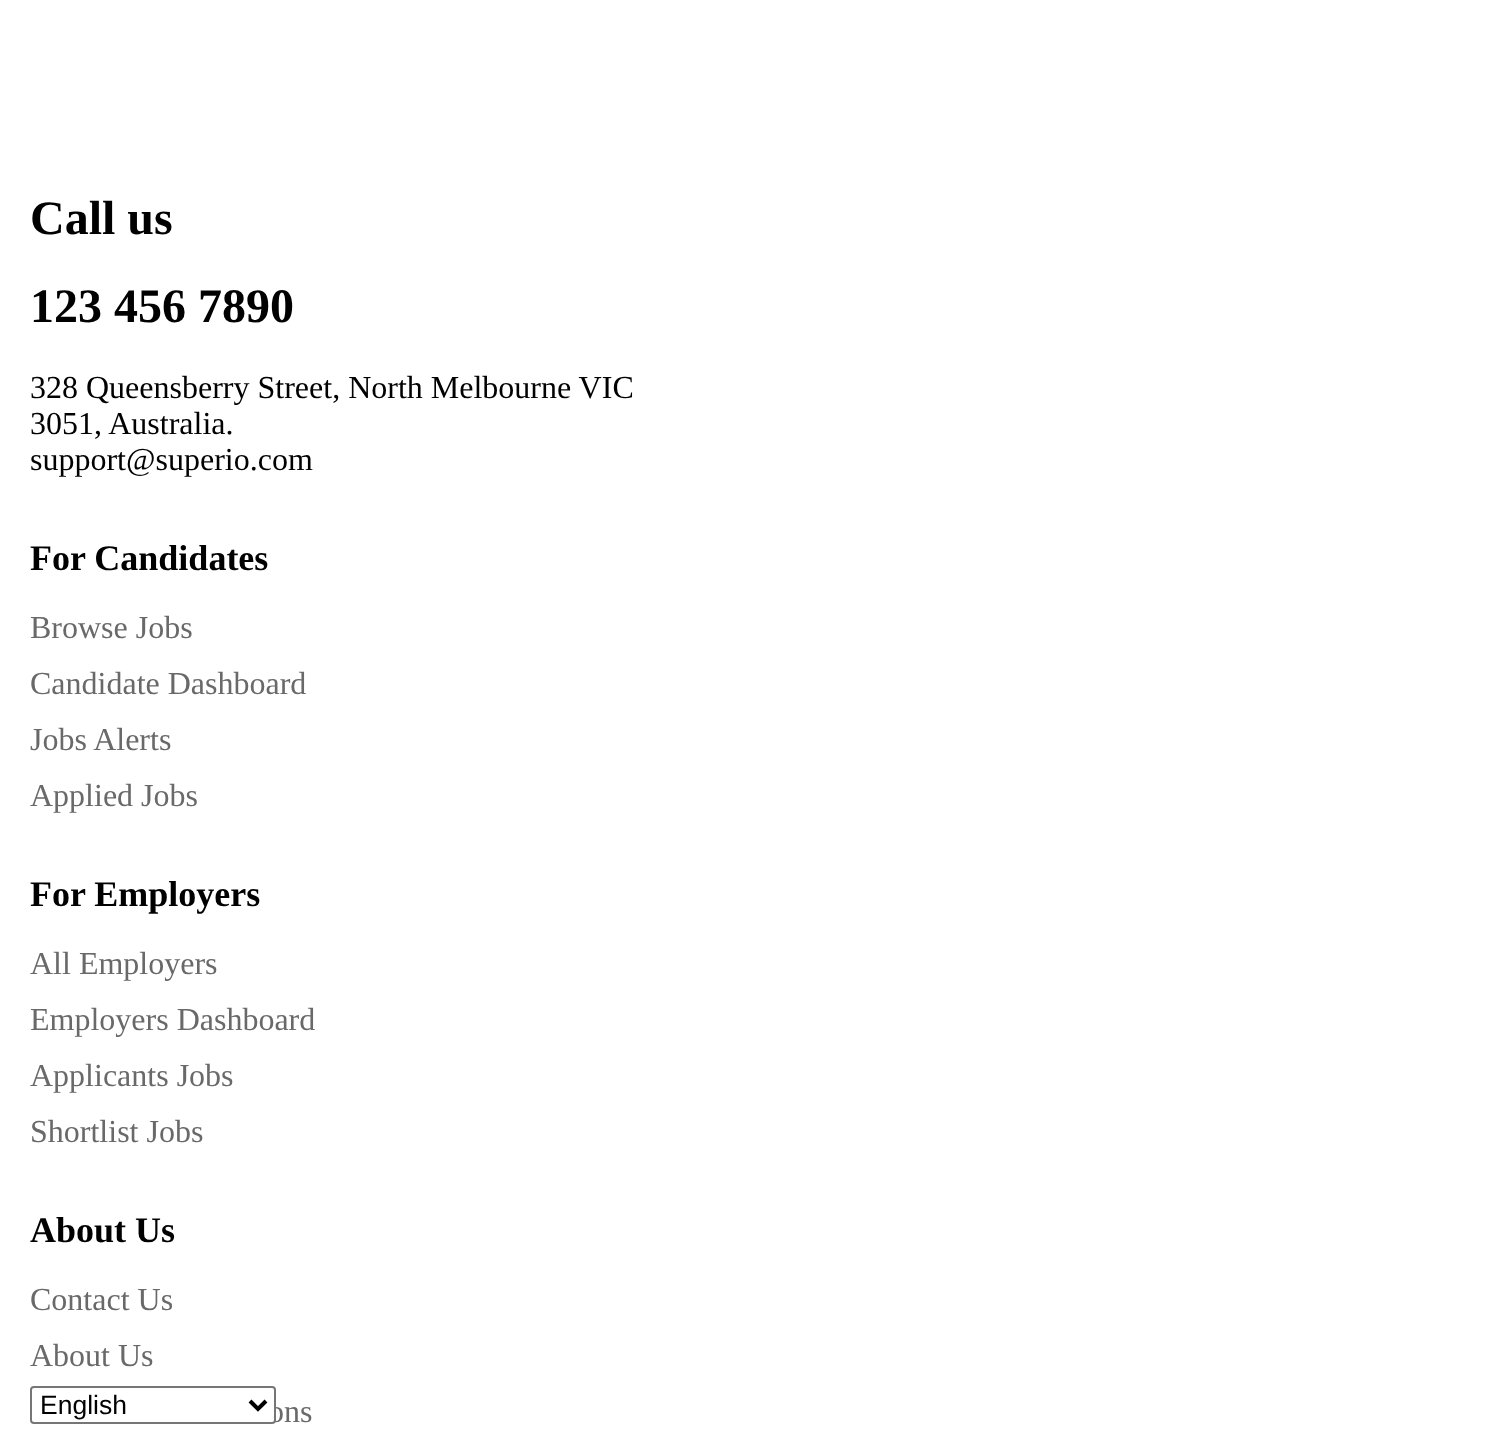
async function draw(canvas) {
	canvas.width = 1502;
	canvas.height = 1453;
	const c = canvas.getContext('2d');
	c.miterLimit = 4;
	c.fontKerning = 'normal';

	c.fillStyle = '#fff';
	c.fillRect(0, 0, 1502, 1453);
	c.font = 'bold 48px Liberation Serif';
	c.fillStyle = '#000';
	c.fillText('Call us', 30, 234);
	c.fillText('123 456 7890', 30, 322);
	c.font = '32px Liberation Serif';
	for (const [text, x, y] of [
		['328 Queensberry Street, North Melbourne VIC', 30, 398],
		['3051, Australia.', 30, 434],
		['support@superio.com', 30, 470],
	]) {
		c.fillText(text, x, y);
	}
	c.font = 'bold 36px Liberation Serif';
	c.fillText('For Candidates', 30, 570);
	c.font = '32px Liberation Serif';
	c.fillStyle = '#696969';
	for (const [text, x, y] of [
		['Browse Jobs', 30, 638],
		['Candidate Dashboard', 30, 694],
		['Jobs Alerts', 30, 750],
		['Applied Jobs', 30, 806],
	]) {
		c.fillText(text, x, y);
	}
	c.font = 'bold 36px Liberation Serif';
	c.fillStyle = '#000';
	c.fillText('For Employers', 30, 906);
	c.font = '32px Liberation Serif';
	c.fillStyle = '#696969';
	for (const [text, x, y] of [
		['All Employers', 30, 974],
		['Employers Dashboard', 30, 1030],
		['Applicants Jobs', 30, 1086],
		['Shortlist Jobs', 30, 1142],
	]) {
		c.fillText(text, x, y);
	}
	c.font = 'bold 36px Liberation Serif';
	c.fillStyle = '#000';
	c.fillText('About Us', 30, 1242);
	c.font = '32px Liberation Serif';
	c.fillStyle = '#696969';
	for (const [text, x, y] of [
		['Contact Us', 30, 1310],
		['About Us', 30, 1366],
		['ons', 268, 1422],
	]) {
		c.fillText(text, x, y);
	}
	c.fillStyle = '#fff';
	c.beginPath();
	c.roundRect(31, 1387, 244, 36, 3);
	c.fill();
	c.strokeStyle = '#767676';
	c.lineWidth = 2;
	c.stroke();
	c.beginPath();
	c.moveTo(250, 1401);
	c.lineTo(258, 1409);
	c.lineTo(266, 1401);
	c.strokeStyle = '#000';
	c.lineWidth = 4;
	c.stroke();
	c.font = '26.5px Liberation Sans';
	c.fillStyle = '#000';
	c.fillText('English', 40, 1414);
}

draw(document.querySelector('canvas'));
